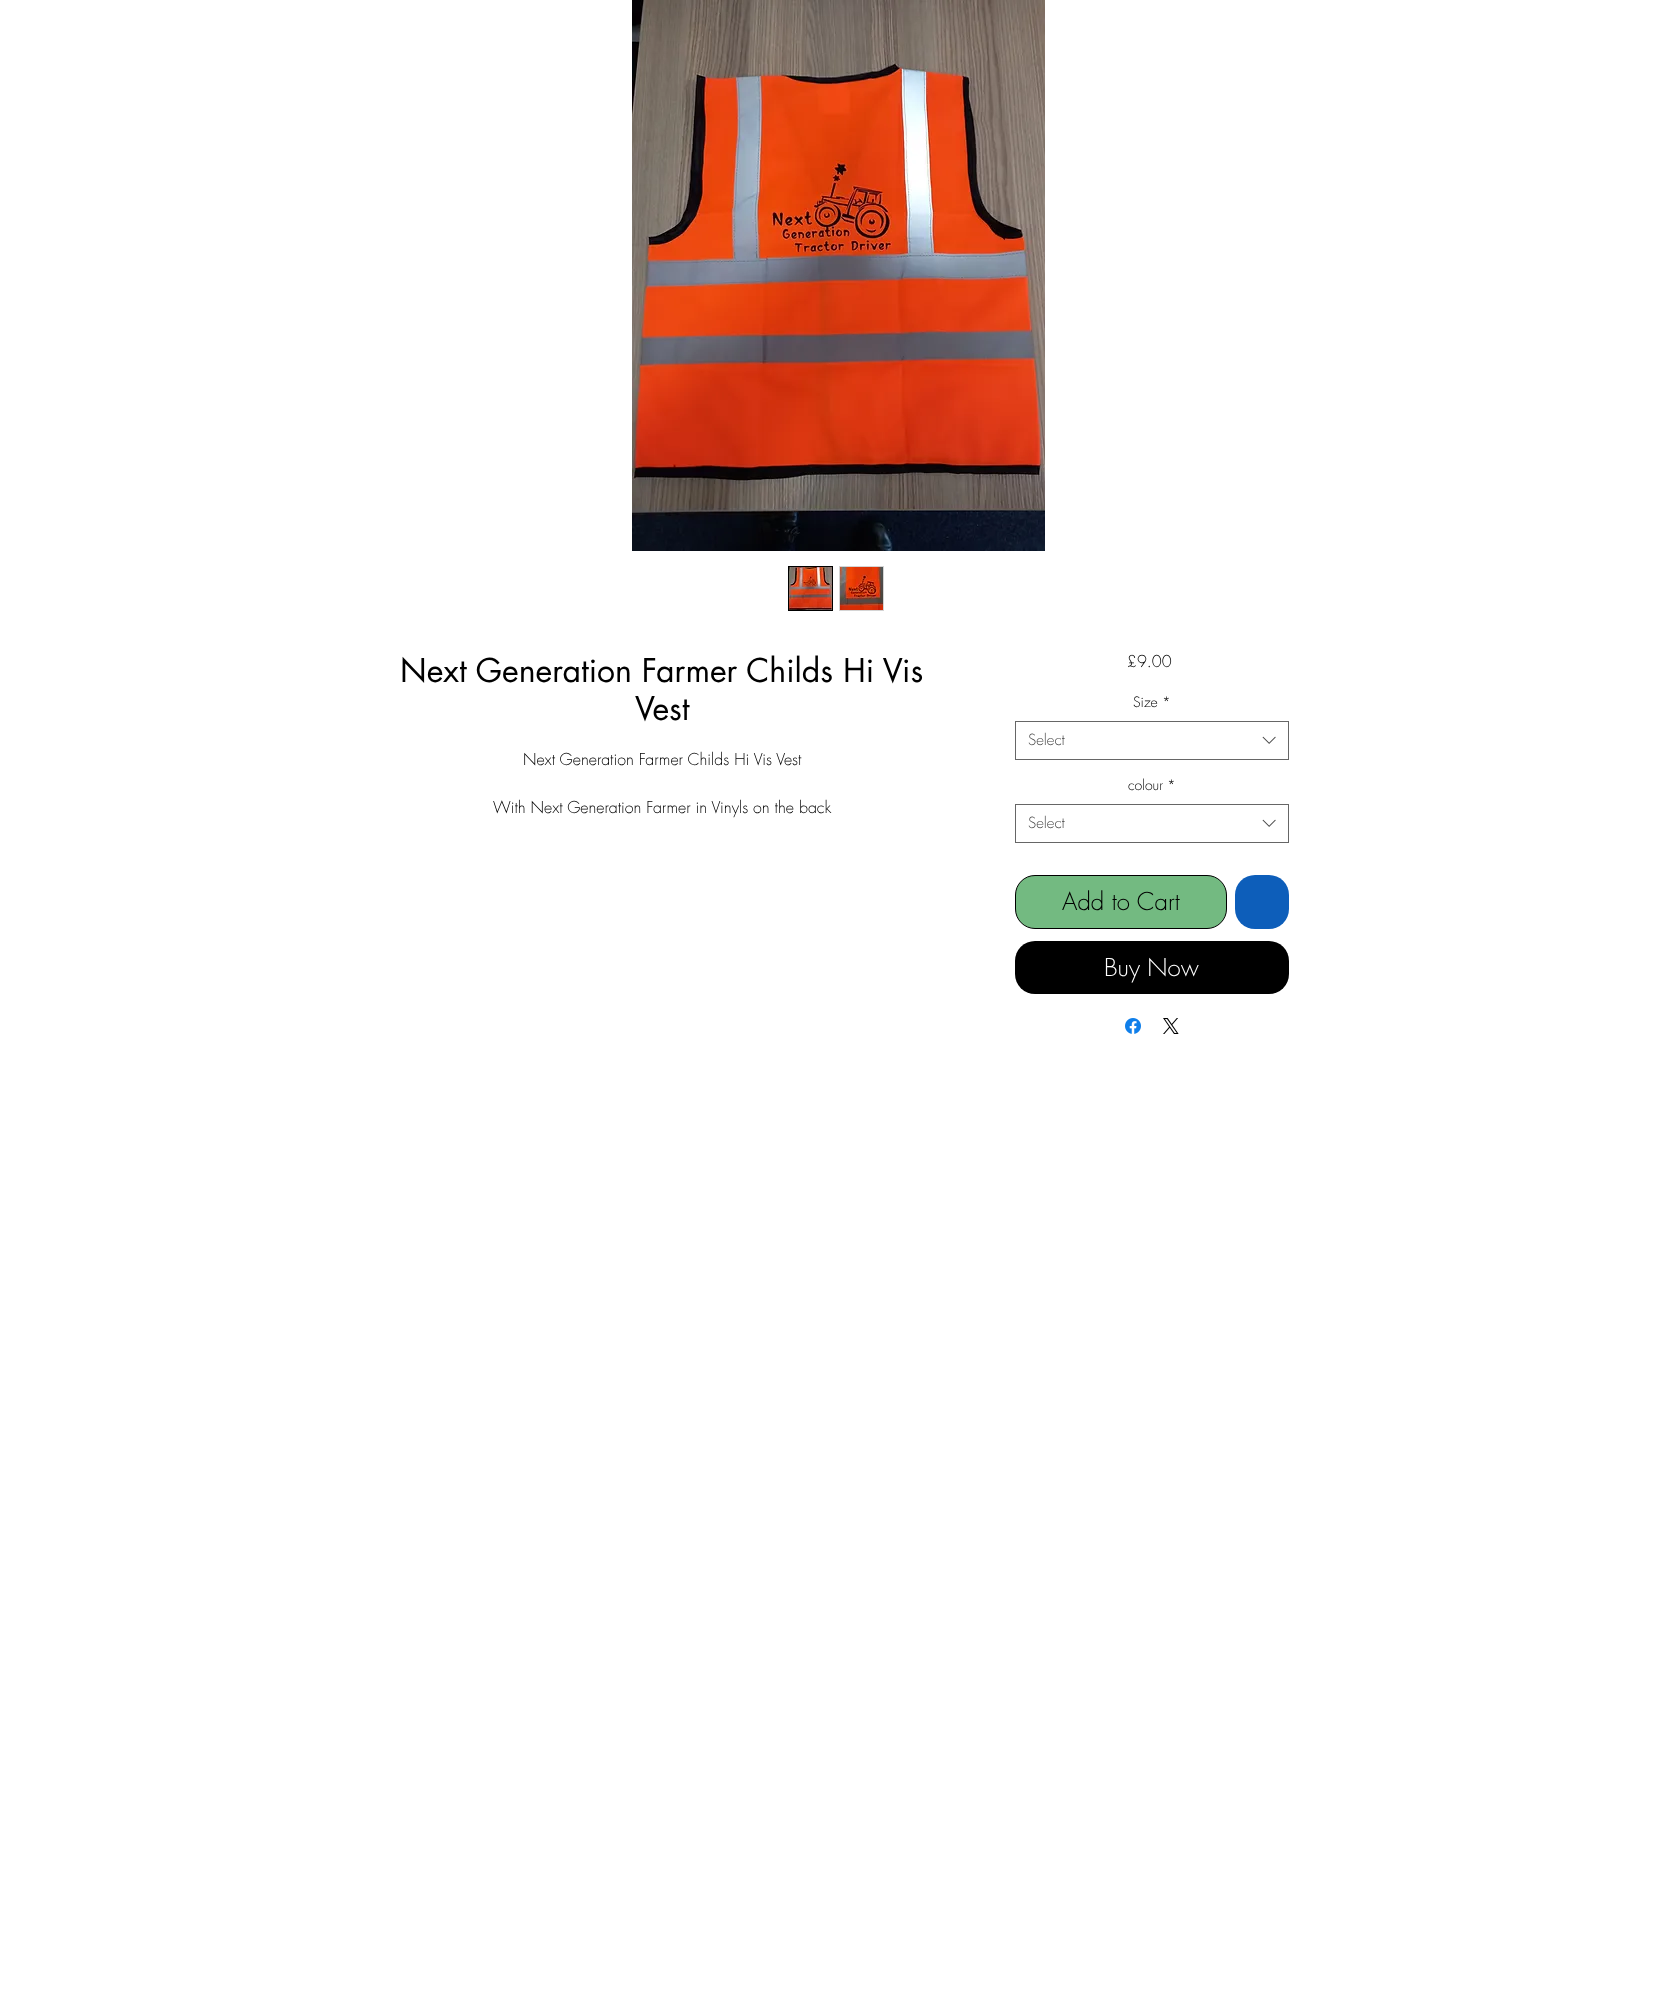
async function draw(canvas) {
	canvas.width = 1677;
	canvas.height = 2007;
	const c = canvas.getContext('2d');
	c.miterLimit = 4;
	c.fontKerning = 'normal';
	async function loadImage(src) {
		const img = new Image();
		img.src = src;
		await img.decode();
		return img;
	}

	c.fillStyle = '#fff';
	c.fillRect(0, 0, 1677, 2007);
	c.drawImage(await loadImage('img1.png'), 632, 0, 413, 551);
	c.strokeStyle = '#000';
	c.strokeRect(788.5, 566.5, 44, 44);
	c.drawImage(await loadImage('img2.png'), 789, 567, 43, 43);
	c.fillStyle = '#d4d4d4';
	c.fillRect(839, 566, 45, 45);
	c.drawImage(await loadImage('img3.png'), 840, 567, 43, 43);
	c.font = '32px futura';
	c.fillStyle = '#000';
	c.fillText('Next Generation Farmer Childs Hi Vis', 400, 682);
	c.fillText('Vest', 635, 720);
	c.font = '300 16px futura';
	for (const [text, x, y] of [
		['Next Generation Farmer Childs Hi Vis Vest', 523, 765],
		['With Next Generation Farmer in Vinyls on the back', 493, 813],
		['£9.00', 1127, 667],
	]) {
		c.fillText(text, x, y);
	}
	c.font = '300 14px futura';
	c.fillText('Size', 1133, 707);
	c.fillText('*', 1162, 707);
	c.strokeStyle = '#666';
	c.strokeRect(1015.5, 721.5, 273, 38);
	c.font = '300 15px futura';
	c.fillStyle = '#444';
	c.fillText('Select', 1028, 745);
	c.drawImage(await loadImage('img4.png'), 1262, 736, 14, 8);
	c.font = '300 14px futura';
	c.fillStyle = '#000';
	c.fillText('colour', 1128, 790);
	c.fillText('*', 1167, 790);
	c.strokeRect(1015.5, 804.5, 273, 38);
	c.font = '300 15px futura';
	c.fillStyle = '#444';
	c.fillText('Select', 1028, 828);
	c.drawImage(await loadImage('img4.png'), 1262, 819, 14, 8);
	c.fillStyle = '#73ba81';
	c.beginPath();
	c.roundRect(1015.5, 875.5, 211, 53, 19.5);
	c.fill();
	c.strokeStyle = '#000';
	c.stroke();
	c.font = '300 24px futura';
	c.fillStyle = '#000';
	c.fillText('Add to Cart', 1062, 910);
	c.fillStyle = '#0d5eba';
	c.beginPath();
	c.roundRect(1235, 875, 54, 54, 20);
	c.fill();
	c.fillStyle = '#000';
	c.beginPath();
	c.roundRect(1015, 941, 274, 53, 20);
	c.fill();
	c.fillStyle = '#fff';
	c.fillText('Buy Now', 1104, 976);
	c.drawImage(await loadImage('img5.png'), 1125, 1018, 16, 16);
	c.drawImage(await loadImage('img6.png'), 1163, 1018, 16, 16);
}

draw(document.querySelector('canvas'));
